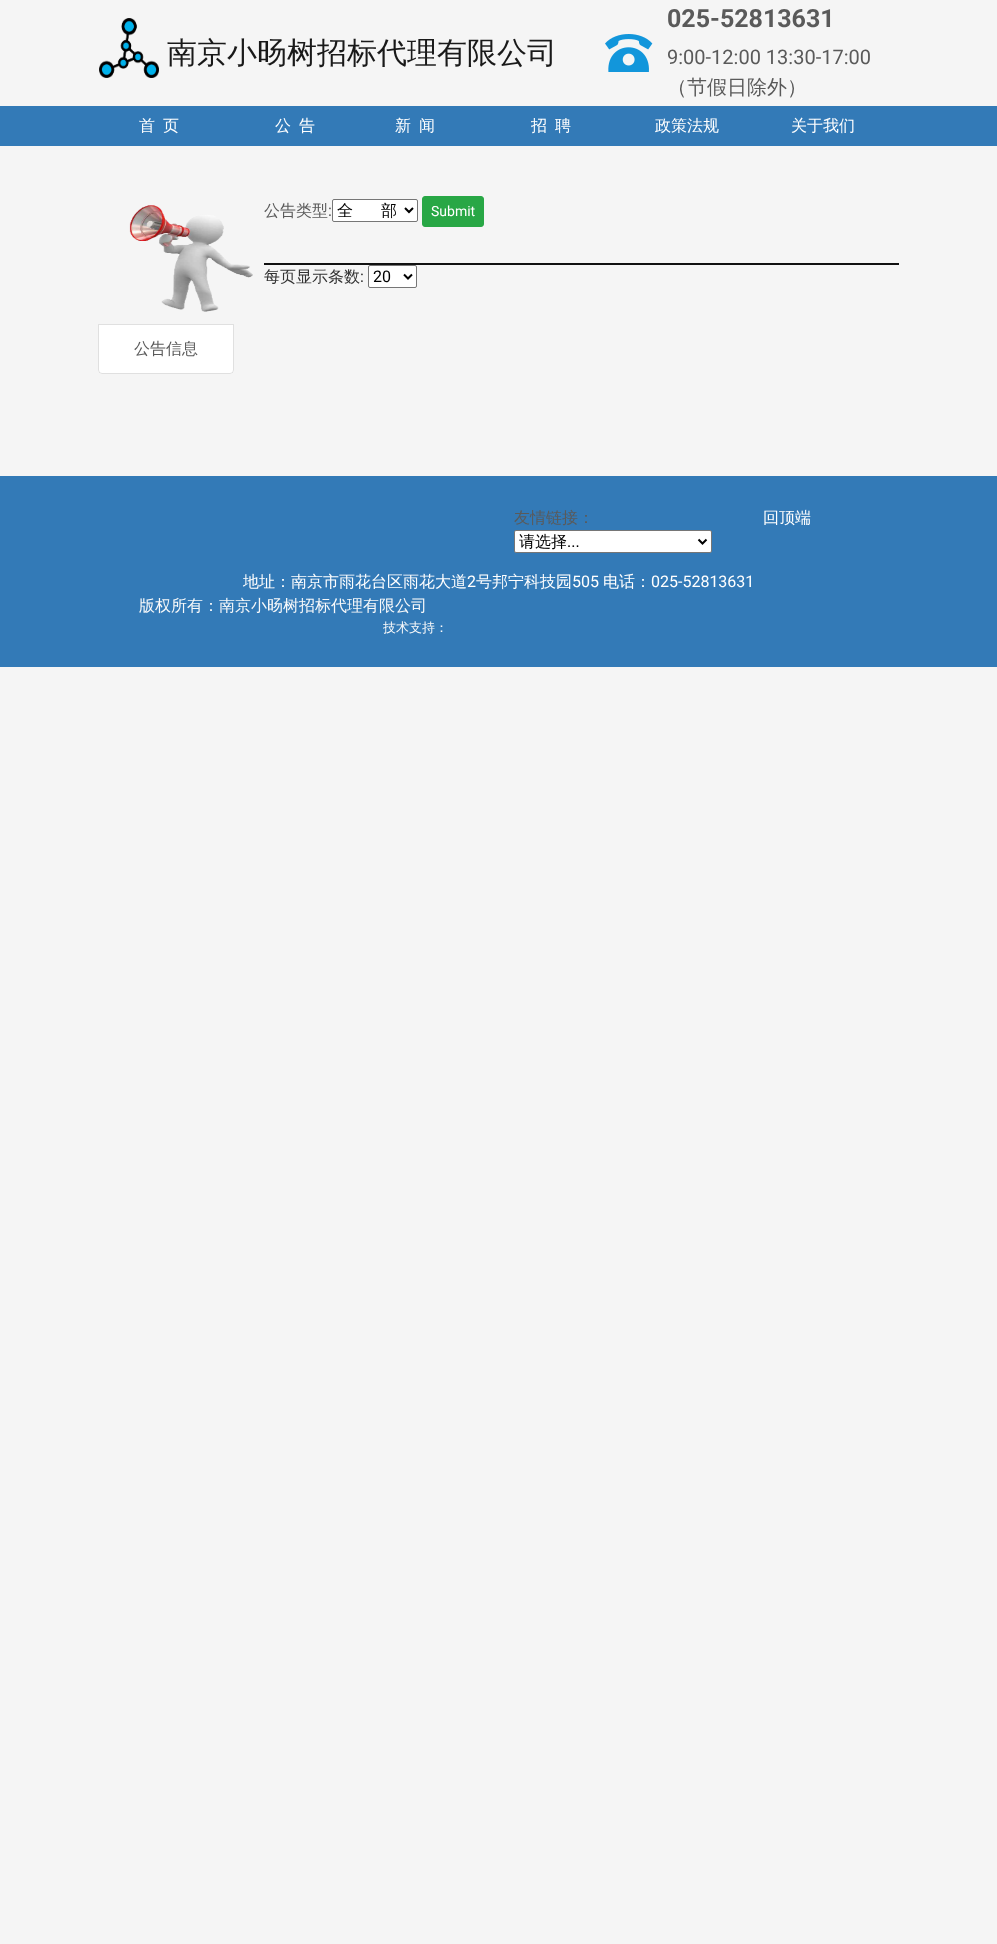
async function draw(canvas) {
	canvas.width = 997;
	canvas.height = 1944;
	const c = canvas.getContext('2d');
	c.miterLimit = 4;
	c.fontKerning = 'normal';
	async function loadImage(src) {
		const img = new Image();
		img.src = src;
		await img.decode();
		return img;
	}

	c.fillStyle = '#f5f5f5';
	c.fillRect(0, 0, 997, 1944);
	c.drawImage(await loadImage('img1.png'), 99, 18, 60, 60);
	c.font = '500 30px WenQuanYi Zen Hei';
	c.fillStyle = '#191919';
	c.fillText('南京小旸树招标代理有限公司', 167, 63);
	c.drawImage(await loadImage('img2.png'), 605, 34, 48, 38);
	c.font = 'bold 25px Roboto';
	c.fillStyle = '#5a5a5a';
	c.fillText('025-52813631', 667, 27);
	c.font = '20px Roboto';
	c.fillText('9:00-12:00 13:30-17:00', 667, 64);
	c.font = '500 20px WenQuanYi Zen Hei';
	c.fillText('（节假日除外）', 667, 94);
	c.fillStyle = '#337ab7';
	c.fillRect(0, 106, 997, 40);
	c.font = '500 16px WenQuanYi Zen Hei';
	c.fillStyle = '#fff';
	for (const [text, x, y] of [
		['首', 139, 131],
		['页', 163, 131],
		['公', 275, 131],
		['告', 299, 131],
		['新', 395, 131],
		['闻', 419, 131],
		['招', 531, 131],
		['聘', 555, 131],
		['政策法规', 655, 131],
		['关于我们', 791, 131],
	]) {
		c.fillText(text, x, y);
	}
	c.fillStyle = '#5a5a5a';
	c.fillText('公告类型', 264, 216);
	c.font = '16px Roboto';
	c.fillText(':', 328, 216);
	c.fillStyle = '#fff';
	c.beginPath();
	c.roundRect(332.5, 199.5, 85, 22, 1.5);
	c.fill();
	c.strokeStyle = '#767676';
	c.stroke();
	c.beginPath();
	c.moveTo(405, 208);
	c.lineTo(409, 212);
	c.lineTo(413, 208);
	c.strokeStyle = '#000';
	c.lineWidth = 2;
	c.stroke();
	c.font = '500 16px WenQuanYi Zen Hei';
	c.fillStyle = '#000';
	c.fillText('全', 337, 216);
	c.fillText('部', 381, 216);
	c.fillStyle = '#28a745';
	c.beginPath();
	c.roundRect(422.5, 196.5, 61, 30, 2.5);
	c.fill();
	c.strokeStyle = '#28a745';
	c.lineWidth = 1;
	c.stroke();
	c.font = '14px Roboto';
	c.fillStyle = '#fff';
	c.fillText('Submit', 431, 216);
	c.fillStyle = '#111';
	c.fillRect(264, 263, 635, 2);
	c.font = '500 16px WenQuanYi Zen Hei';
	c.fillStyle = '#333';
	c.fillText('每页显示条数', 264, 282);
	c.font = '16px Roboto';
	c.fillText(':', 360, 282);
	c.fillStyle = '#fff';
	c.beginPath();
	c.roundRect(368.5, 265.5, 48, 22, 1.5);
	c.fill();
	c.strokeStyle = '#767676';
	c.stroke();
	c.beginPath();
	c.moveTo(404, 274.5);
	c.lineTo(408, 278.5);
	c.lineTo(412, 274.5);
	c.strokeStyle = '#000';
	c.lineWidth = 2;
	c.stroke();
	c.fillStyle = '#000';
	c.fillText('20', 373, 282);
	c.drawImage(await loadImage('img3.png'), 129, 205, 124, 107);
	c.fillStyle = '#fff';
	c.beginPath();
	c.roundRect(98, 324, 136, 50, [0, 0, 4, 4]);
	c.fill();
	c.beginPath();
	c.roundRect(98.5, 324.5, 135, 49, [0, 0, 3.5, 3.5]);
	c.strokeStyle = '#0000001f';
	c.lineWidth = 1;
	c.stroke();
	c.font = '500 16px WenQuanYi Zen Hei';
	c.fillStyle = '#5a5a5a';
	c.fillText('公告信息', 134, 354);
	c.fillStyle = '#337ab7';
	c.fillRect(0, 476, 997, 191);
	c.fillStyle = '#5a5a5a';
	c.fillText('友情链接：', 514, 523);
	c.fillStyle = '#fff';
	c.beginPath();
	c.roundRect(514.5, 530.5, 197, 22, 1.5);
	c.fill();
	c.strokeStyle = '#767676';
	c.stroke();
	c.beginPath();
	c.moveTo(698.5, 539.5);
	c.lineTo(702.5, 543.5);
	c.lineTo(706.5, 539.5);
	c.strokeStyle = '#000';
	c.lineWidth = 2;
	c.stroke();
	c.fillStyle = '#000';
	c.fillText('请选择', 519, 547);
	c.font = '16px Roboto';
	c.fillText('...', 567, 547);
	c.font = '500 16px WenQuanYi Zen Hei';
	c.fillStyle = '#fff';
	c.fillText('回顶端', 763, 523);
	c.fillText('地址：南京市雨花台区雨花大道', 243, 587);
	c.font = '16px Roboto';
	c.fillText('2', 467, 587);
	c.font = '500 16px WenQuanYi Zen Hei';
	c.fillText('号邦宁科技园', 476, 587);
	c.font = '16px Roboto';
	c.fillText('505', 572, 587);
	c.font = '500 16px WenQuanYi Zen Hei';
	c.fillText('电话：', 603, 587);
	c.font = '16px Roboto';
	c.fillText('025-52813631', 651, 587);
	c.font = '500 16px WenQuanYi Zen Hei';
	c.fillStyle = '#f8f9fa';
	c.fillText('版权所有：南京小旸树招标代理有限公司', 139, 611);
	c.font = '500 13px WenQuanYi Zen Hei';
	c.fillText('技术支持：', 383, 632);
}

draw(document.querySelector('canvas'));
